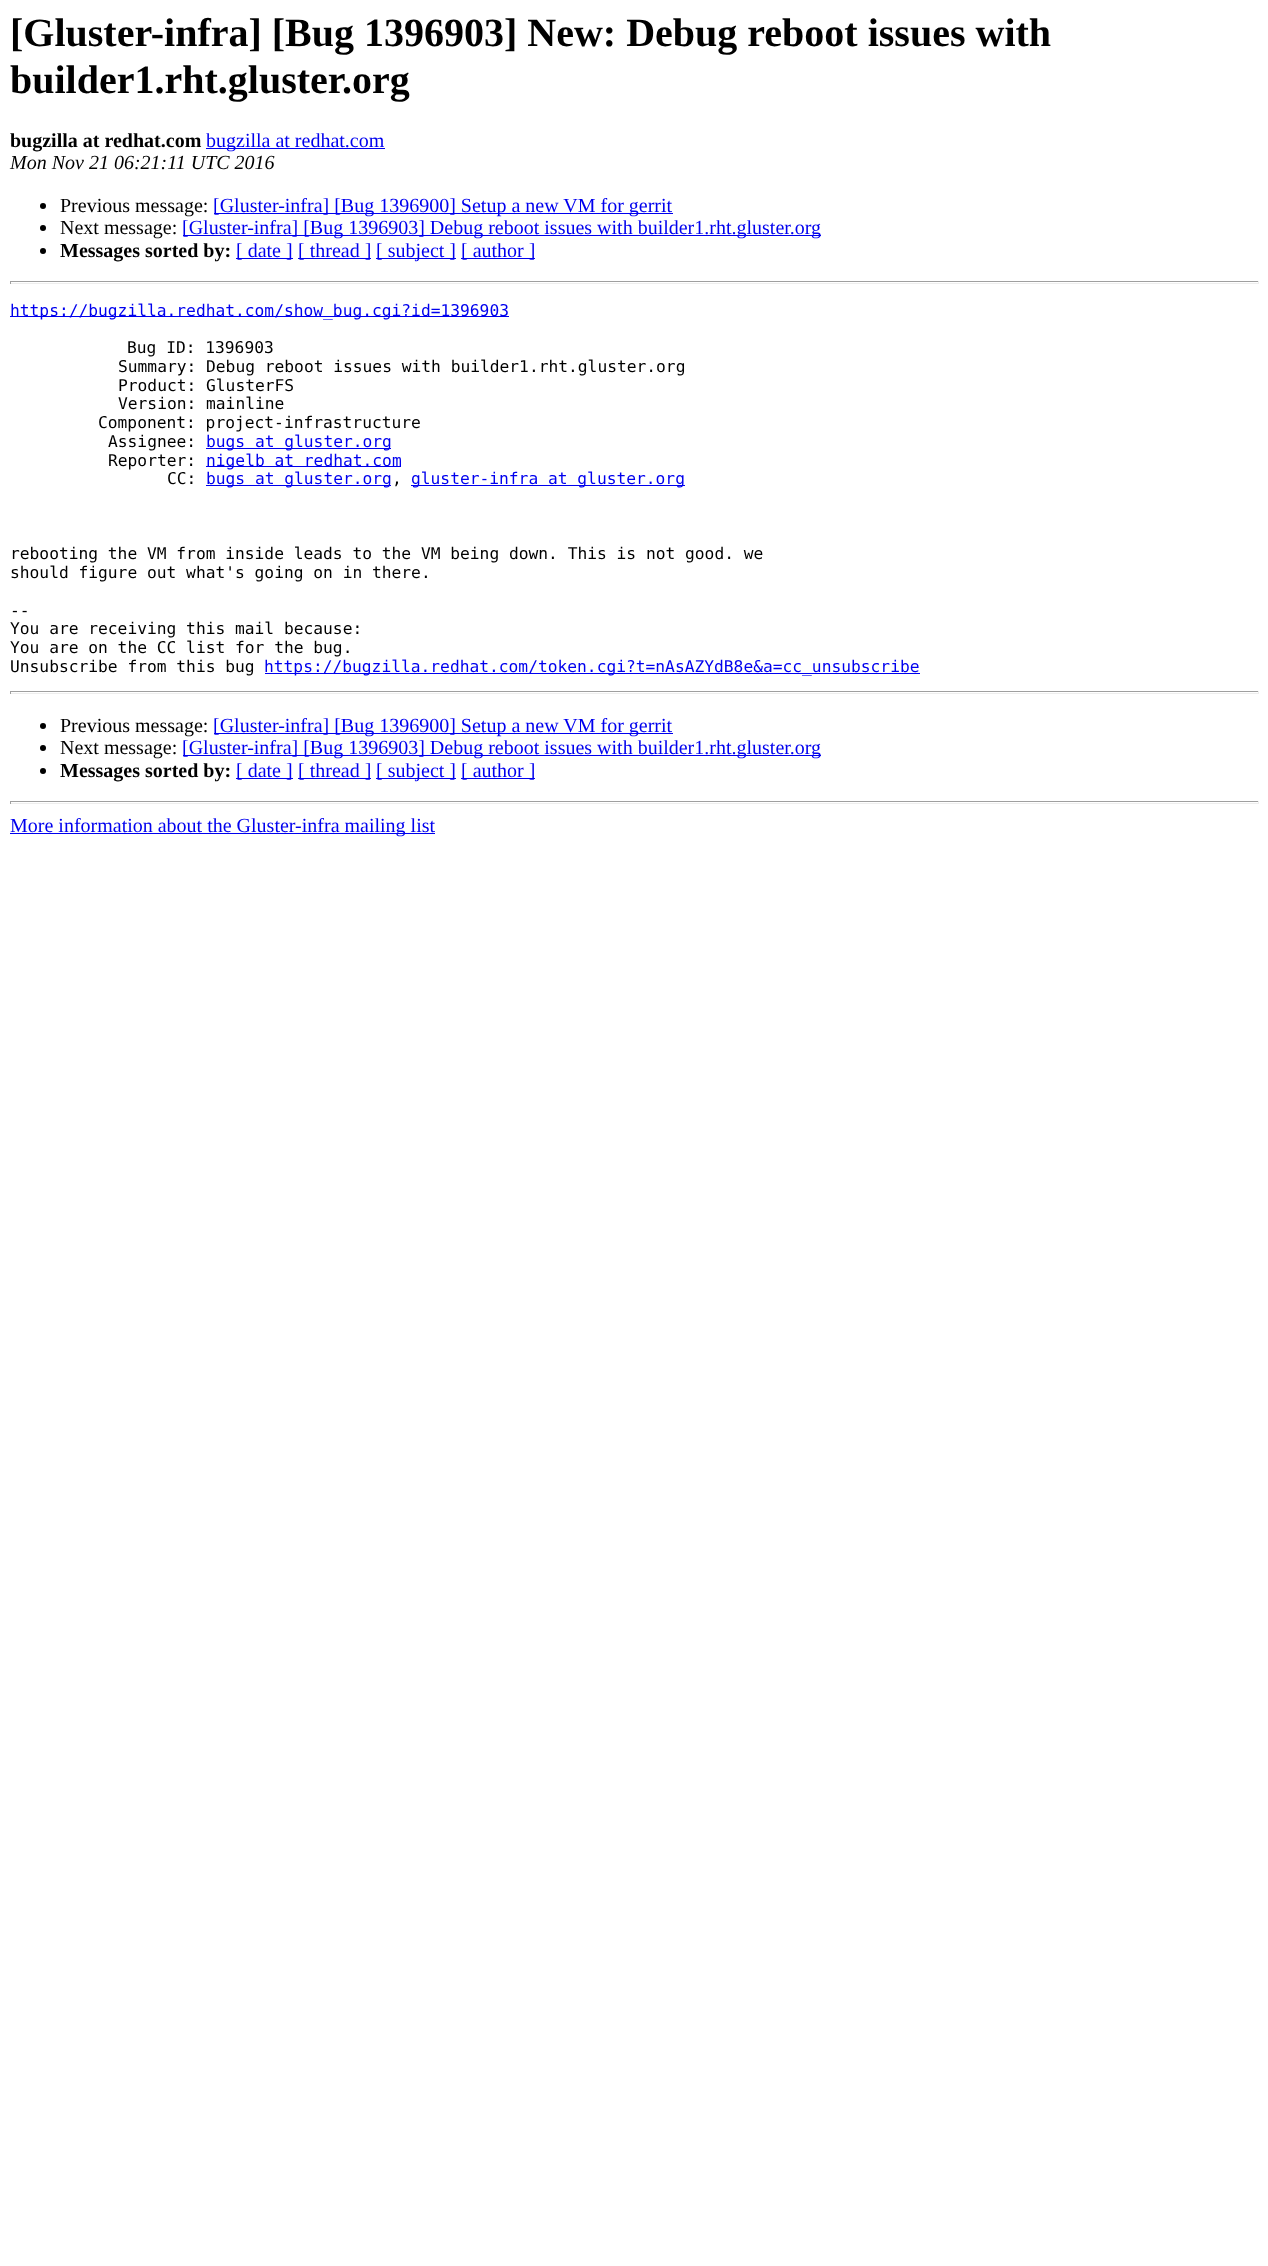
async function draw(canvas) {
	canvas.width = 1268;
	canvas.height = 2266;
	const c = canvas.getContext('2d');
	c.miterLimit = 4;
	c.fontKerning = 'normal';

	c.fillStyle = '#fff';
	c.fillRect(0, 0, 1268, 2266);
	c.font = 'bold 40px Liberation Serif';
	c.fillStyle = '#000';
	c.fillText('[Gluster-infra] [Bug 1396903] New: Debug reboot issues with', 10, 46);
	c.fillText('builder1.rht.gluster.org', 10, 93);
	c.font = 'bold 20px Liberation Serif';
	c.fillText('bugzilla at redhat.com', 10, 147);
	c.fillStyle = '#00e';
	c.fillRect(206, 148, 179, 1);
	c.font = '20px Liberation Serif';
	c.fillText('bugzilla at redhat.com', 206, 147);
	c.font = 'italic 20px Liberation Serif';
	c.fillStyle = '#000';
	c.fillText('Mon Nov 21 06:21:11 UTC 2016', 10, 169);
	c.beginPath();
	c.arc(43, 206, 3, 0, 2 * Math.PI);
	c.fill();
	c.font = '20px Liberation Serif';
	c.fillText('Previous message:', 60, 212);
	c.fillStyle = '#00e';
	c.fillRect(214, 213, 459, 1);
	c.fillText('[Gluster-infra] [Bug 1396900] Setup a new VM for gerrit', 213, 212);
	c.fillStyle = '#000';
	c.beginPath();
	c.arc(43, 228, 3, 0, 2 * Math.PI);
	c.fill();
	c.fillText('Next message:', 60, 234);
	c.fillStyle = '#00e';
	c.fillRect(183, 235, 638, 1);
	c.fillText('[Gluster-infra] [Bug 1396903] Debug reboot issues with builder1.rht.gluster.org', 182, 234);
	c.fillStyle = '#000';
	c.beginPath();
	c.arc(43, 251, 3, 0, 2 * Math.PI);
	c.fill();
	c.font = 'bold 20px Liberation Serif';
	c.fillText('Messages sorted by:', 60, 257);
	c.fillStyle = '#00e';
	c.fillRect(236, 258, 57, 1);
	c.font = '20px Liberation Serif';
	c.fillText('[ date ]', 236, 257);
	c.fillRect(298, 258, 73, 1);
	c.fillText('[ thread ]', 298, 257);
	c.fillRect(376, 258, 80, 1);
	c.fillText('[ subject ]', 376, 257);
	c.fillRect(461, 258, 74, 1);
	c.fillText('[ author ]', 461, 257);
	for (const [x, y, w, h, color] of [
		[10, 281, 1249, 1, '#9f9f9f'],
		[1258, 281, 1, 3, '#eee'],
		[10, 283, 1249, 1, '#eee'],
		[10, 281, 1, 3, '#9f9f9f'],
		[10, 316, 499, 1, '#00e'],
	]) {
		c.fillStyle = color;
		c.fillRect(x, y, w, h);
	}
	c.font = '16.25px DejaVu Sans Mono';
	c.fillText('https://bugzilla.redhat.com/show_bug.cgi?id=1396903', 10, 316);
	c.fillStyle = '#000';
	for (const [text, x, y] of [
		['Bug ID: 1396903', 127, 353],
		['Summary: Debug reboot issues with builder1.rht.gluster.org', 118, 372],
		['Product: GlusterFS', 118, 391],
		['Version: mainline', 118, 409],
		['Component: project-infrastructure', 98, 428],
		['Assignee:', 108, 447],
	]) {
		c.fillText(text, x, y);
	}
	c.fillStyle = '#00e';
	c.fillRect(206, 448, 185, 1);
	c.fillText('bugs at gluster.org', 206, 447);
	c.fillStyle = '#000';
	c.fillText('Reporter:', 108, 466);
	c.fillStyle = '#00e';
	c.fillRect(206, 466, 195, 1);
	c.fillText('nigelb at redhat.com', 206, 466);
	c.fillStyle = '#000';
	c.fillText('CC:', 167, 484);
	c.fillStyle = '#00e';
	c.fillRect(206, 485, 185, 1);
	c.fillText('bugs at gluster.org', 206, 484);
	c.fillStyle = '#000';
	c.fillText(',', 392, 484);
	c.fillStyle = '#00e';
	c.fillRect(411, 485, 274, 1);
	c.fillText('gluster-infra at gluster.org', 411, 484);
	c.fillStyle = '#000';
	for (const [text, x, y] of [
		['rebooting the VM from inside leads to the VM being down. This is not good. we', 10, 559],
		['should figure out what\'s going on in there.', 10, 578],
		['--', 10, 616],
		['You are receiving this mail because:', 10, 634],
		['You are on the CC list for the bug.', 10, 653],
		['Unsubscribe from this bug', 10, 672],
	]) {
		c.fillText(text, x, y);
	}
	c.fillStyle = '#00e';
	c.fillRect(265, 673, 655, 1);
	c.fillText('https://bugzilla.redhat.com/token.cgi?t=nAsAZYdB8e&a=cc_unsubscribe', 264, 672);
	for (const [x, y, w, h, color] of [
		[10, 691, 1249, 1, '#9f9f9f'],
		[1258, 691, 1, 3, '#eee'],
		[10, 693, 1249, 1, '#eee'],
		[10, 691, 1, 3, '#9f9f9f'],
	]) {
		c.fillStyle = color;
		c.fillRect(x, y, w, h);
	}
	c.fillStyle = '#000';
	c.beginPath();
	c.arc(43, 726, 3, 0, 2 * Math.PI);
	c.fill();
	c.font = '20px Liberation Serif';
	c.fillText('Previous message:', 60, 732);
	c.fillStyle = '#00e';
	c.fillRect(214, 733, 459, 1);
	c.fillText('[Gluster-infra] [Bug 1396900] Setup a new VM for gerrit', 213, 732);
	c.fillStyle = '#000';
	c.beginPath();
	c.arc(43, 748, 3, 0, 2 * Math.PI);
	c.fill();
	c.fillText('Next message:', 60, 754);
	c.fillStyle = '#00e';
	c.fillRect(183, 755, 638, 1);
	c.fillText('[Gluster-infra] [Bug 1396903] Debug reboot issues with builder1.rht.gluster.org', 182, 754);
	c.fillStyle = '#000';
	c.beginPath();
	c.arc(43, 771, 3, 0, 2 * Math.PI);
	c.fill();
	c.font = 'bold 20px Liberation Serif';
	c.fillText('Messages sorted by:', 60, 777);
	c.fillStyle = '#00e';
	c.fillRect(236, 778, 57, 1);
	c.font = '20px Liberation Serif';
	c.fillText('[ date ]', 236, 777);
	c.fillRect(298, 778, 73, 1);
	c.fillText('[ thread ]', 298, 777);
	c.fillRect(376, 778, 80, 1);
	c.fillText('[ subject ]', 376, 777);
	c.fillRect(461, 778, 74, 1);
	c.fillText('[ author ]', 461, 777);
	for (const [x, y, w, h, color] of [
		[10, 801, 1249, 1, '#9f9f9f'],
		[1258, 801, 1, 3, '#eee'],
		[10, 803, 1249, 1, '#eee'],
		[10, 801, 1, 3, '#9f9f9f'],
		[10, 833, 425, 1, '#00e'],
	]) {
		c.fillStyle = color;
		c.fillRect(x, y, w, h);
	}
	c.fillText('More information about the Gluster-infra mailing list', 10, 832);
}

draw(document.querySelector('canvas'));
